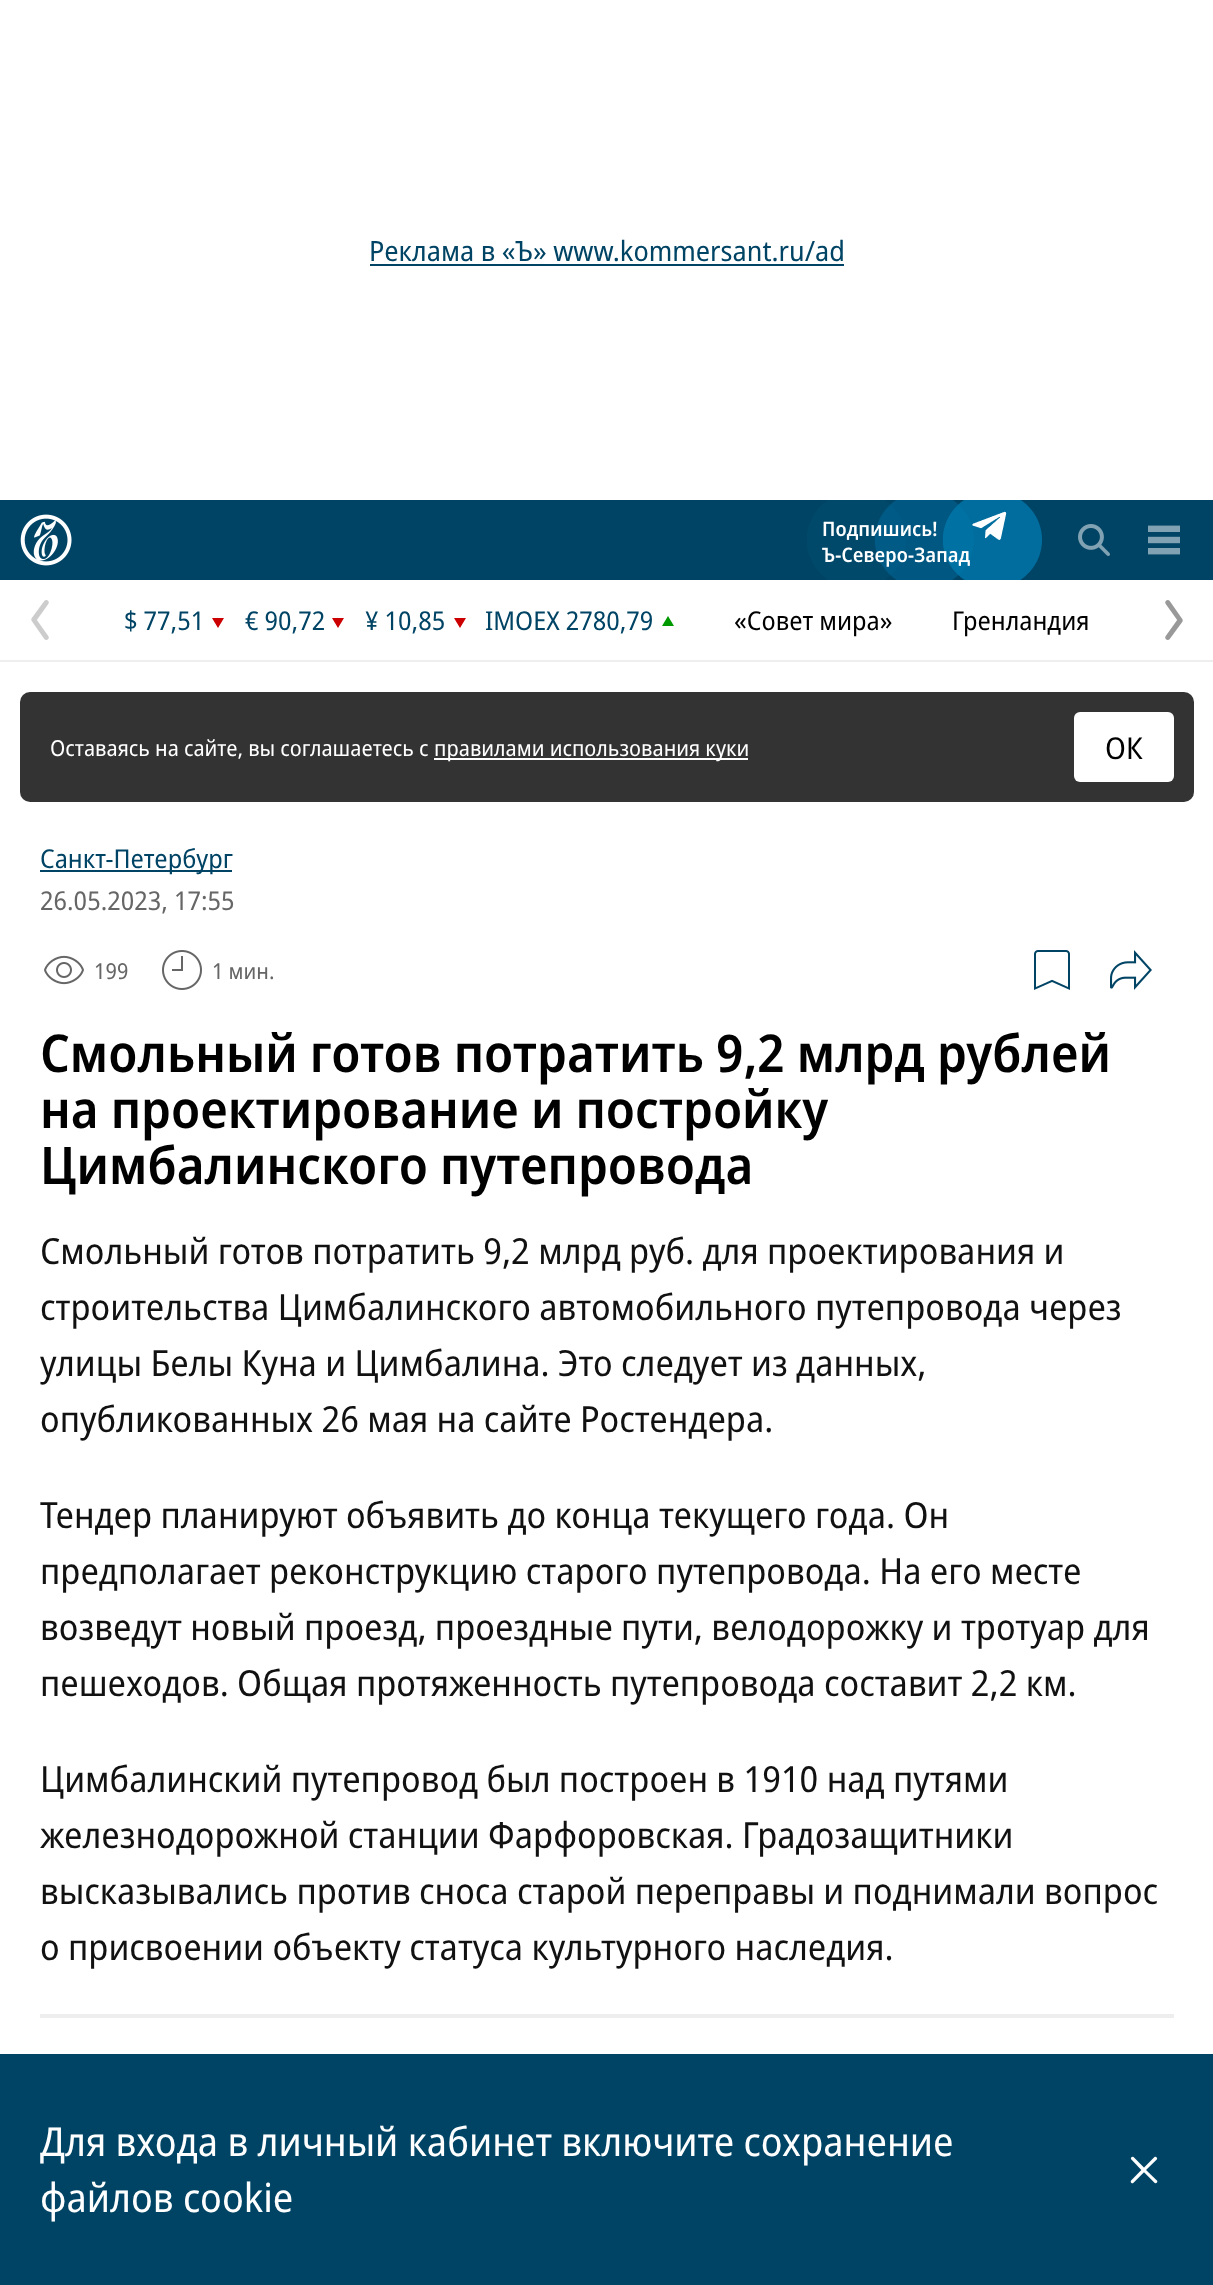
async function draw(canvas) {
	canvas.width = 1213;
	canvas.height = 2285;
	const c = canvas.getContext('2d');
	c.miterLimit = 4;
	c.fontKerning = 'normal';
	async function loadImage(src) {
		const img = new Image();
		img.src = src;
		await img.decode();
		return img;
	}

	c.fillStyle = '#fff';
	c.fillRect(0, 0, 1213, 2285);
	c.font = '28px Noto Sans';
	c.fillStyle = '#004465';
	c.fillText('Реклама в «Ъ» www.kommersant.ru/ad', 369, 261);
	c.fillRect(370, 264, 474, 2);
	c.fillRect(0, 500, 1213, 80);
	c.drawImage(await loadImage('img1.png'), 20, 514, 52, 52);
	c.drawImage(await loadImage('img2.png'), 807, 500, 235, 80);
	c.drawImage(await loadImage('img3.png'), 1078, 524, 32, 32);
	c.drawImage(await loadImage('img4.png'), 1148, 525, 32, 30);
	c.fillStyle = '#eee';
	c.fillRect(0, 660, 1213, 2);
	c.drawImage(await loadImage('img5.png'), 31, 600, 18, 40);
	c.font = '26px Noto Sans';
	c.fillStyle = '#004465';
	c.fillText('$ 77,51', 124, 630);
	c.fillStyle = '#c00';
	c.beginPath();
	c.moveTo(212, 618);
	c.lineTo(224, 618);
	c.lineTo(218, 628);
	c.closePath();
	c.fill();
	c.fillStyle = '#004465';
	c.fillText('€ 90,72', 245, 630);
	c.fillStyle = '#c00';
	c.beginPath();
	c.moveTo(332, 618);
	c.lineTo(344, 618);
	c.lineTo(338, 628);
	c.closePath();
	c.fill();
	c.fillStyle = '#004465';
	c.fillText('¥ 10,85', 365, 630);
	c.fillStyle = '#c00';
	c.beginPath();
	c.moveTo(454, 618);
	c.lineTo(466, 618);
	c.lineTo(460, 628);
	c.closePath();
	c.fill();
	c.fillStyle = '#004465';
	c.fillText('IMOEX 2780,79', 485, 630);
	c.fillStyle = '#090';
	c.beginPath();
	c.moveTo(674, 626);
	c.lineTo(662, 626);
	c.lineTo(668, 616);
	c.closePath();
	c.fill();
	c.fillStyle = '#000';
	c.fillText('«Совет мира»', 734, 630);
	c.fillText('Гренландия', 952, 630);
	c.drawImage(await loadImage('img6.png'), 1165, 600, 18, 40);
	c.fillStyle = '#333';
	c.beginPath();
	c.roundRect(20, 692, 1174, 110, 10);
	c.fill();
	c.font = '22px Noto Sans';
	c.fillStyle = '#fff';
	c.fillText('Оставаясь на сайте, вы соглашаетесь с', 50, 756);
	c.fillRect(434, 758, 314, 2);
	c.fillText('правилами использования куки', 434, 756);
	c.beginPath();
	c.roundRect(1074, 712, 100, 70, 6);
	c.fill();
	c.font = '30px Noto Sans';
	c.fillStyle = '#000';
	c.fillText('ОК', 1105, 759);
	c.fillStyle = '#004465';
	c.fillRect(40, 870, 192, 2);
	c.font = '26px Noto Sans';
	c.fillText('Санкт-Петербург', 40, 868);
	c.fillStyle = '#666';
	c.fillText('26.05.2023, 17:55', 40, 910);
	c.drawImage(await loadImage('img7.png'), 44, 955, 40, 30);
	c.font = '22px Noto Sans';
	c.fillText('199', 94, 979);
	c.drawImage(await loadImage('img8.png'), 162, 950, 40, 40);
	c.fillText('1 мин.', 212, 979);
	c.drawImage(await loadImage('img9.png'), 1034, 950, 36, 40);
	c.drawImage(await loadImage('img10.png'), 1110, 950, 42, 40);
	c.font = '600 52px Noto Sans';
	c.fillStyle = '#000';
	for (const [text, x, y] of [
		['Смольный готов потратить 9,2 млрд рублей', 40, 1072],
		['на проектирование и постройку', 40, 1128],
		['Цимбалинского путепровода', 40, 1184],
	]) {
		c.fillText(text, x, y);
	}
	c.font = '36px Noto Sans';
	c.fillStyle = '#111';
	for (const [text, x, y] of [
		['Смольный готов потратить 9,2 млрд руб. для проектирования и', 40, 1264],
		['строительства Цимбалинского автомобильного путепровода через', 40, 1320],
		['улицы Белы Куна и Цимбалина. Это следует из данных,', 40, 1376],
		['опубликованных 26 мая на сайте Ростендера.', 40, 1432],
		['Тендер планируют объявить до конца текущего года. Он', 40, 1528],
		['предполагает реконструкцию старого путепровода. На его месте', 40, 1584],
		['возведут новый проезд, проездные пути, велодорожку и тротуар для', 40, 1640],
		['пешеходов. Общая протяженность путепровода составит 2,2 км.', 40, 1696],
		['Цимбалинский путепровод был построен в 1910 над путями', 40, 1792],
		['железнодорожной станции Фарфоровская. Градозащитники', 40, 1848],
		['высказывались против сноса старой переправы и поднимали вопрос', 40, 1904],
		['о присвоении объекту статуса культурного наследия.', 40, 1960],
	]) {
		c.fillText(text, x, y);
	}
	c.fillStyle = '#eee';
	c.fillRect(40, 2014, 1134, 4);
	c.fillStyle = '#004465';
	c.fillRect(0, 2054, 1213, 231);
	c.font = '40px Noto Sans';
	c.fillStyle = '#fff';
	c.fillText('Для входа в личный кабинет включите сохранение', 40, 2156);
	c.fillText('файлов cookie', 40, 2212);
	c.drawImage(await loadImage('img11.png'), 1130, 2156, 28, 28);
}

draw(document.querySelector('canvas'));
